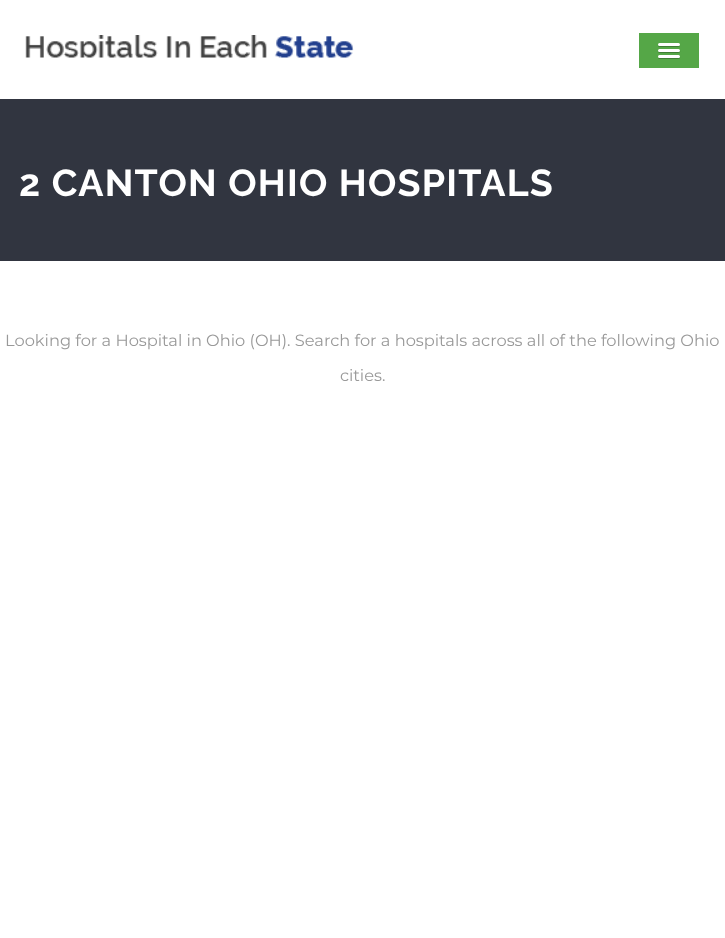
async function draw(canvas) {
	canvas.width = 725;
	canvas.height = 938;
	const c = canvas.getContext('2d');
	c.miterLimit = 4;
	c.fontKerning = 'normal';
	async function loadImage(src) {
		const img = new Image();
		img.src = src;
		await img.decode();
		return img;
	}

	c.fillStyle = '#fff';
	c.fillRect(0, 0, 725, 938);
	c.drawImage(await loadImage('img1.png'), 25, 35, 329, 23);
	c.fillStyle = '#55a747';
	c.fillRect(639, 33, 60, 35);
	c.fillStyle = '#407d35';
	c.beginPath();
	c.moveTo(658, 45);
	c.bezierCurveTo(657, 47.5, 662, 47, 662.5, 47);
	c.lineTo(675.5, 47);
	c.bezierCurveTo(675.5, 47, 682, 47.5, 679.5, 44.5);
	c.lineTo(679, 45);
	c.closePath();
	c.fill();
	c.fillStyle = '#fff';
	c.beginPath();
	c.roundRect(658, 43, 22, 3, 1.5);
	c.fill();
	c.fillStyle = '#407d35';
	c.beginPath();
	c.moveTo(658, 51);
	c.bezierCurveTo(657.5, 53.5, 662, 53, 662.5, 53);
	c.lineTo(675.5, 53);
	c.bezierCurveTo(676, 53, 681.5, 53.5, 680, 50.5);
	c.lineTo(679, 51);
	c.closePath();
	c.fill();
	c.fillStyle = '#fff';
	c.beginPath();
	c.roundRect(658, 49, 22, 3, 1.5);
	c.fill();
	c.fillStyle = '#407d35';
	c.beginPath();
	c.moveTo(658, 57.5);
	c.bezierCurveTo(657.5, 59.5, 661.5, 59, 662.5, 59);
	c.lineTo(675.5, 59);
	c.bezierCurveTo(676, 59, 681, 59.5, 680, 57);
	c.lineTo(679, 57.5);
	c.bezierCurveTo(677, 57.5, 658.5, 57.5, 658, 57.5);
	c.closePath();
	c.fill();
	c.fillStyle = '#fff';
	c.beginPath();
	c.roundRect(658, 55, 22, 3, 1.5);
	c.fill();
	c.fillStyle = '#313540';
	c.fillRect(0, 99, 725, 162);
	c.letterSpacing = '1.25px';
	c.font = 'bold 37.5px Raleway';
	c.fillStyle = '#fff';
	c.fillText('2 CANTON OHIO HOSPITALS', 19, 196);
	c.letterSpacing = '0px';
	c.font = '16.25px Montserrat';
	c.fillStyle = '#999';
	c.fillText('Looking for a Hospital in Ohio (OH). Search for a hospitals across all of the following Ohio', 5, 346);
	c.fillText('cities.', 340, 381);
}

draw(document.querySelector('canvas'));
